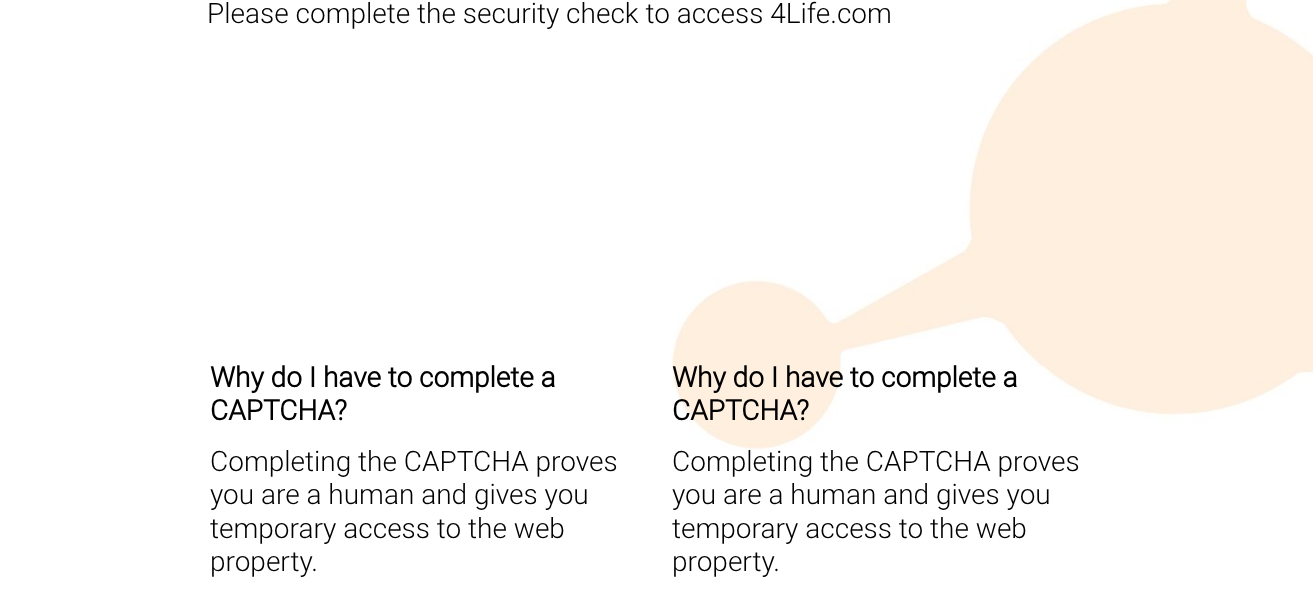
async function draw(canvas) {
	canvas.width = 1313;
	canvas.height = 597;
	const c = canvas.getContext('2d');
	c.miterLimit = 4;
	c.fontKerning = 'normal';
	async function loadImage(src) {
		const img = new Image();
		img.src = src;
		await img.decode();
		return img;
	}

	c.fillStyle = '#fff';
	c.fillRect(0, 0, 1313, 597);
	c.drawImage(await loadImage('img1.png'), 670, 0, 643, 450);
	c.font = '300 28px Roboto';
	c.fillStyle = '#000';
	c.fillText('Please complete the security check to access 4Life.com', 207, 23);
	c.font = 'bold 28px Roboto';
	c.fillText('Why do I have to complete a', 210, 387);
	c.fillText('CAPTCHA?', 210, 420);
	c.font = '300 28px Roboto';
	for (const [text, x, y] of [
		['Completing the CAPTCHA proves', 210, 471],
		['you are a human and gives you', 210, 504],
		['temporary access to the web', 210, 538],
		['property.', 210, 571],
	]) {
		c.fillText(text, x, y);
	}
	c.font = 'bold 28px Roboto';
	c.fillText('Why do I have to complete a', 672, 387);
	c.fillText('CAPTCHA?', 672, 420);
	c.font = '300 28px Roboto';
	for (const [text, x, y] of [
		['Completing the CAPTCHA proves', 672, 471],
		['you are a human and gives you', 672, 504],
		['temporary access to the web', 672, 538],
		['property.', 672, 571],
	]) {
		c.fillText(text, x, y);
	}
}

draw(document.querySelector('canvas'));
